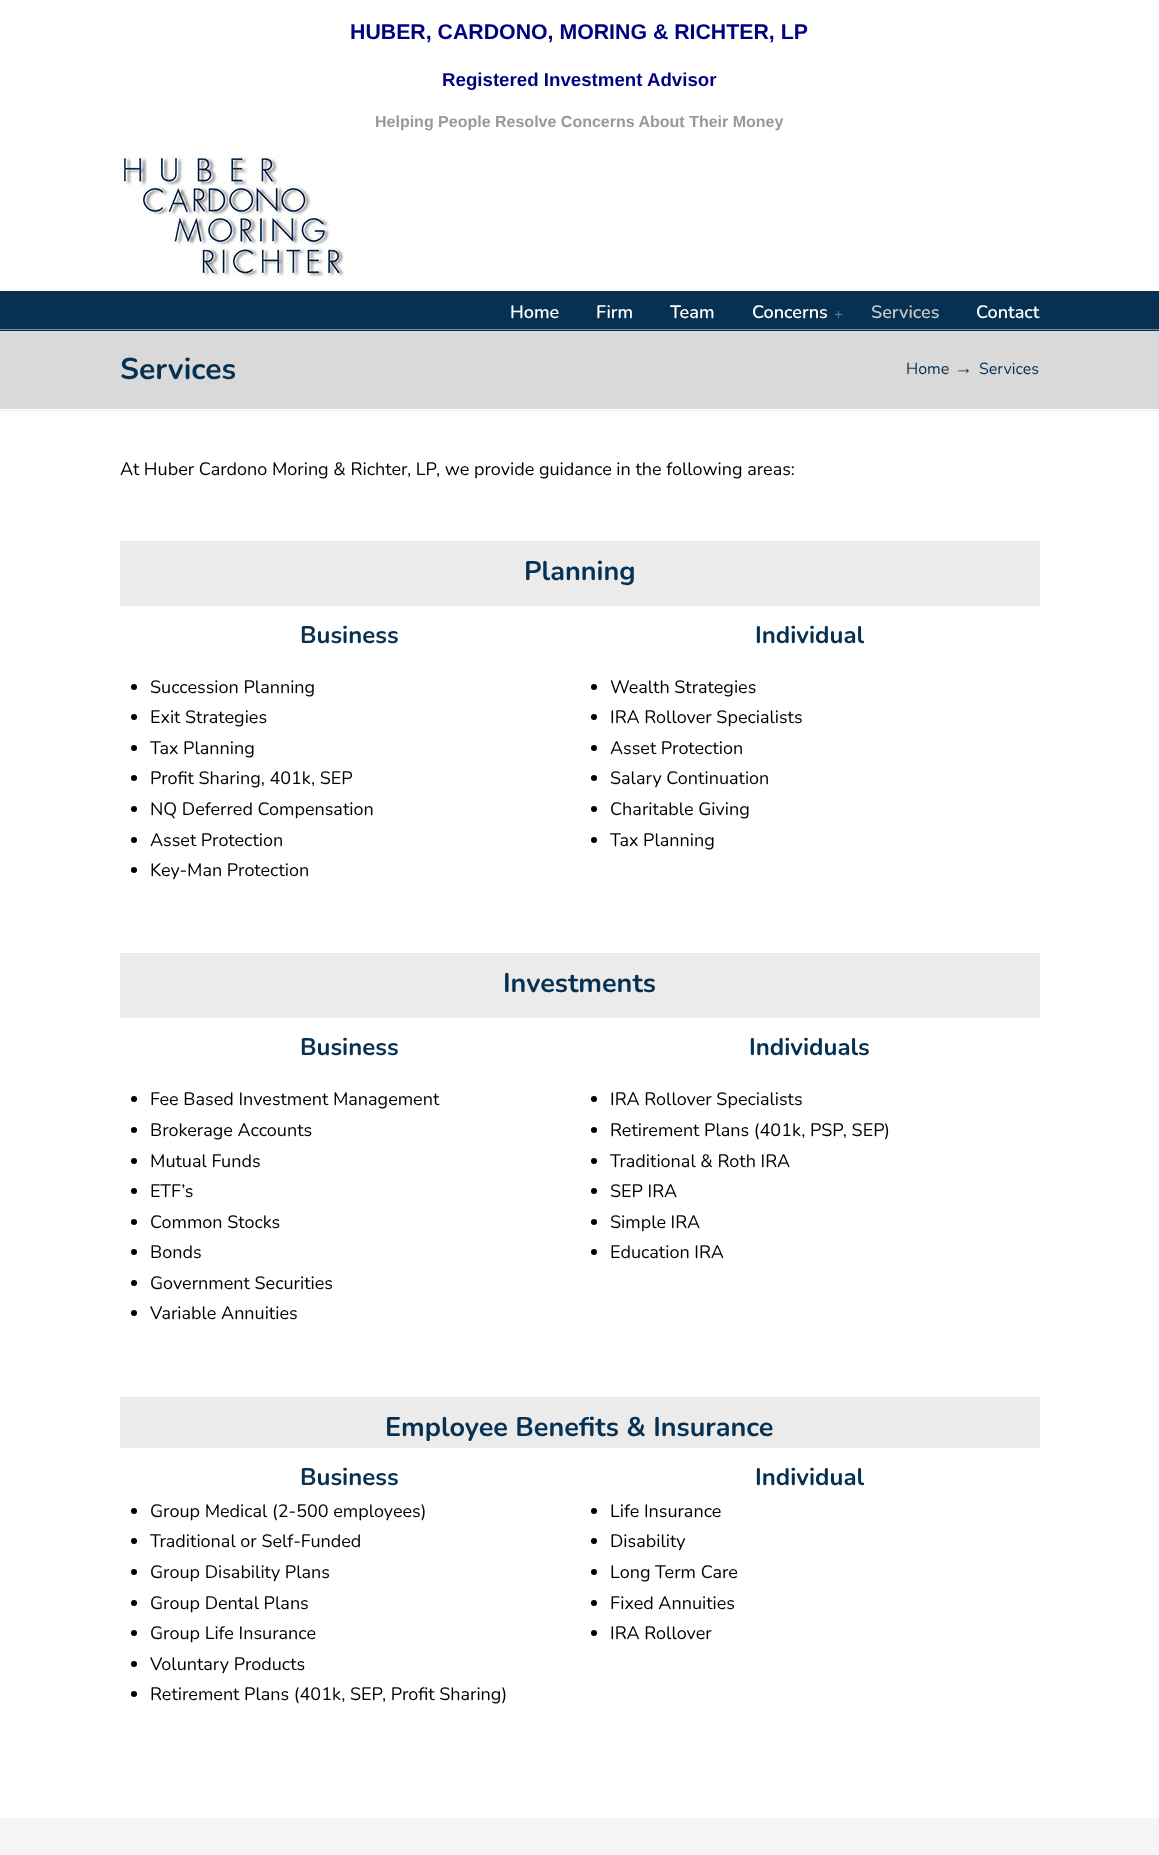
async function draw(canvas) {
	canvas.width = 1159;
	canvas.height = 1855;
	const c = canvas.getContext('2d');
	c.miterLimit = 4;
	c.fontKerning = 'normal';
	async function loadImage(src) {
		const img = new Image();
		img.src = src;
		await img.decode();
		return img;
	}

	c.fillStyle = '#d9d9d9';
	c.fillRect(0, 0, 1159, 1855);
	c.fillStyle = '#fff';
	c.fillRect(0, 0, 1159, 291);
	c.font = 'bold 21.3px Liberation Sans';
	c.fillStyle = '#000080';
	c.fillText('HUBER, CARDONO, MORING & RICHTER, LP', 350, 39);
	c.font = 'bold 18.7px Liberation Sans';
	c.fillText('Registered Investment Advisor', 442, 86);
	c.font = 'bold 16px Liberation Sans';
	c.fillStyle = '#999';
	c.fillText('Helping People Resolve Concerns About Their Money', 375, 127);
	c.drawImage(await loadImage('img1.png'), 120, 152, 224, 128);
	c.fillStyle = '#063153';
	c.fillRect(0, 291, 1159, 40);
	c.drawImage(await loadImage('img2.png'), 0, 329, 1159, 2);
	c.font = '600 18px Nunito';
	c.fillStyle = '#fff';
	for (const [text, x, y] of [
		['Home', 510, 318],
		['Firm', 596, 318],
		['Team', 670, 318],
		['Concerns', 752, 318],
	]) {
		c.fillText(text, x, y);
	}
	c.drawImage(await loadImage('img3.png'), 835, 311, 7, 7);
	c.fillStyle = '#c7c7c7';
	c.fillText('Services', 871, 318);
	c.fillStyle = '#fff';
	c.fillText('Contact', 976, 318);
	c.font = 'bold 30px Nunito';
	c.fillStyle = '#063153';
	c.fillText('Services', 120, 379);
	c.font = '16px Nunito';
	c.fillText('Home', 906, 374);
	c.font = '19px Liberation Serif';
	c.fillText('→', 954, 374);
	c.font = '16px Nunito';
	c.fillText('Services', 979, 374);
	c.fillStyle = '#fff';
	c.fillRect(0, 409, 1159, 1409);
	c.drawImage(await loadImage('img4.png'), 0, 410, 1159, 1);
	c.font = '18px Nunito';
	c.fillStyle = '#000';
	c.fillText('At Huber Cardono Moring & Richter, LP, we provide guidance in the following areas:', 120, 475);
	c.fillStyle = '#ebebeb';
	c.fillRect(120, 541, 920, 65);
	c.font = 'bold 27px Nunito';
	c.fillStyle = '#063153';
	c.fillText('Planning', 524, 580);
	c.font = 'bold 24px Nunito';
	c.fillText('Business', 300, 643);
	c.fillText('Individual', 755, 643);
	c.fillStyle = '#000';
	c.beginPath();
	c.arc(134, 687, 3, 0, 2 * Math.PI);
	c.fill();
	c.font = '18px Nunito';
	c.fillText('Succession Planning', 150, 693);
	c.beginPath();
	c.arc(134, 717, 3, 0, 2 * Math.PI);
	c.fill();
	c.fillText('Exit Strategies', 150, 723);
	c.beginPath();
	c.arc(134, 748, 3, 0, 2 * Math.PI);
	c.fill();
	c.fillText('Tax Planning', 150, 754);
	c.beginPath();
	c.arc(134, 778, 3, 0, 2 * Math.PI);
	c.fill();
	c.fillText('Profit Sharing, 401k, SEP', 150, 784);
	c.beginPath();
	c.arc(134, 809, 3, 0, 2 * Math.PI);
	c.fill();
	c.fillText('NQ Deferred Compensation', 150, 815);
	c.beginPath();
	c.arc(134, 840, 3, 0, 2 * Math.PI);
	c.fill();
	c.fillText('Asset Protection', 150, 846);
	c.beginPath();
	c.arc(134, 870, 3, 0, 2 * Math.PI);
	c.fill();
	c.fillText('Key-Man Protection', 150, 876);
	c.beginPath();
	c.arc(594, 687, 3, 0, 2 * Math.PI);
	c.fill();
	c.fillText('Wealth Strategies', 610, 693);
	c.beginPath();
	c.arc(594, 717, 3, 0, 2 * Math.PI);
	c.fill();
	c.fillText('IRA Rollover Specialists', 610, 723);
	c.beginPath();
	c.arc(594, 748, 3, 0, 2 * Math.PI);
	c.fill();
	c.fillText('Asset Protection', 610, 754);
	c.beginPath();
	c.arc(594, 778, 3, 0, 2 * Math.PI);
	c.fill();
	c.fillText('Salary Continuation', 610, 784);
	c.beginPath();
	c.arc(594, 809, 3, 0, 2 * Math.PI);
	c.fill();
	c.fillText('Charitable Giving', 610, 815);
	c.beginPath();
	c.arc(594, 840, 3, 0, 2 * Math.PI);
	c.fill();
	c.fillText('Tax Planning', 610, 846);
	c.fillStyle = '#ebebeb';
	c.fillRect(120, 953, 920, 65);
	c.font = 'bold 27px Nunito';
	c.fillStyle = '#063153';
	c.fillText('Investments', 503, 992);
	c.font = 'bold 24px Nunito';
	c.fillText('Business', 300, 1055);
	c.fillText('Individuals', 749, 1055);
	c.fillStyle = '#000';
	c.beginPath();
	c.arc(134, 1099, 3, 0, 2 * Math.PI);
	c.fill();
	c.font = '18px Nunito';
	c.fillText('Fee Based Investment Management', 150, 1105);
	c.beginPath();
	c.arc(134, 1130, 3, 0, 2 * Math.PI);
	c.fill();
	c.fillText('Brokerage Accounts', 150, 1136);
	c.beginPath();
	c.arc(134, 1161, 3, 0, 2 * Math.PI);
	c.fill();
	c.fillText('Mutual Funds', 150, 1167);
	c.beginPath();
	c.arc(134, 1191, 3, 0, 2 * Math.PI);
	c.fill();
	c.fillText('ETF’s', 150, 1197);
	c.beginPath();
	c.arc(134, 1222, 3, 0, 2 * Math.PI);
	c.fill();
	c.fillText('Common Stocks', 150, 1228);
	c.beginPath();
	c.arc(134, 1252, 3, 0, 2 * Math.PI);
	c.fill();
	c.fillText('Bonds', 150, 1258);
	c.beginPath();
	c.arc(134, 1283, 3, 0, 2 * Math.PI);
	c.fill();
	c.fillText('Government Securities', 150, 1289);
	c.beginPath();
	c.arc(134, 1313, 3, 0, 2 * Math.PI);
	c.fill();
	c.fillText('Variable Annuities', 150, 1319);
	c.beginPath();
	c.arc(594, 1099, 3, 0, 2 * Math.PI);
	c.fill();
	c.fillText('IRA Rollover Specialists', 610, 1105);
	c.beginPath();
	c.arc(594, 1130, 3, 0, 2 * Math.PI);
	c.fill();
	c.fillText('Retirement Plans (401k, PSP, SEP)', 610, 1136);
	c.beginPath();
	c.arc(594, 1161, 3, 0, 2 * Math.PI);
	c.fill();
	c.fillText('Traditional & Roth IRA', 610, 1167);
	c.beginPath();
	c.arc(594, 1191, 3, 0, 2 * Math.PI);
	c.fill();
	c.fillText('SEP IRA', 610, 1197);
	c.beginPath();
	c.arc(594, 1222, 3, 0, 2 * Math.PI);
	c.fill();
	c.fillText('Simple IRA', 610, 1228);
	c.beginPath();
	c.arc(594, 1252, 3, 0, 2 * Math.PI);
	c.fill();
	c.fillText('Education IRA', 610, 1258);
	c.fillStyle = '#ebebeb';
	c.fillRect(120, 1397, 920, 51);
	c.font = 'bold 27px Nunito';
	c.fillStyle = '#063153';
	c.fillText('Employee Benefits & Insurance', 385, 1436);
	c.font = 'bold 24px Nunito';
	c.fillText('Business', 300, 1485);
	c.fillText('Individual', 755, 1485);
	c.fillStyle = '#000';
	c.beginPath();
	c.arc(134, 1511, 3, 0, 2 * Math.PI);
	c.fill();
	c.font = '18px Nunito';
	c.fillText('Group Medical (2-500 employees)', 150, 1517);
	c.beginPath();
	c.arc(134, 1541, 3, 0, 2 * Math.PI);
	c.fill();
	c.fillText('Traditional or Self-Funded', 150, 1547);
	c.beginPath();
	c.arc(134, 1572, 3, 0, 2 * Math.PI);
	c.fill();
	c.fillText('Group Disability Plans', 150, 1578);
	c.beginPath();
	c.arc(134, 1603, 3, 0, 2 * Math.PI);
	c.fill();
	c.fillText('Group Dental Plans', 150, 1609);
	c.beginPath();
	c.arc(134, 1633, 3, 0, 2 * Math.PI);
	c.fill();
	c.fillText('Group Life Insurance', 150, 1639);
	c.beginPath();
	c.arc(134, 1664, 3, 0, 2 * Math.PI);
	c.fill();
	c.fillText('Voluntary Products', 150, 1670);
	c.beginPath();
	c.arc(134, 1694, 3, 0, 2 * Math.PI);
	c.fill();
	c.fillText('Retirement Plans (401k, SEP, Profit Sharing)', 150, 1700);
	c.beginPath();
	c.arc(594, 1511, 3, 0, 2 * Math.PI);
	c.fill();
	c.fillText('Life Insurance', 610, 1517);
	c.beginPath();
	c.arc(594, 1541, 3, 0, 2 * Math.PI);
	c.fill();
	c.fillText('Disability', 610, 1547);
	c.beginPath();
	c.arc(594, 1572, 3, 0, 2 * Math.PI);
	c.fill();
	c.fillText('Long Term Care', 610, 1578);
	c.beginPath();
	c.arc(594, 1603, 3, 0, 2 * Math.PI);
	c.fill();
	c.fillText('Fixed Annuities', 610, 1609);
	c.beginPath();
	c.arc(594, 1633, 3, 0, 2 * Math.PI);
	c.fill();
	c.fillText('IRA Rollover', 610, 1639);
	c.fillStyle = '#f5f5f5';
	c.fillRect(0, 1818, 1159, 37);
}

draw(document.querySelector('canvas'));
